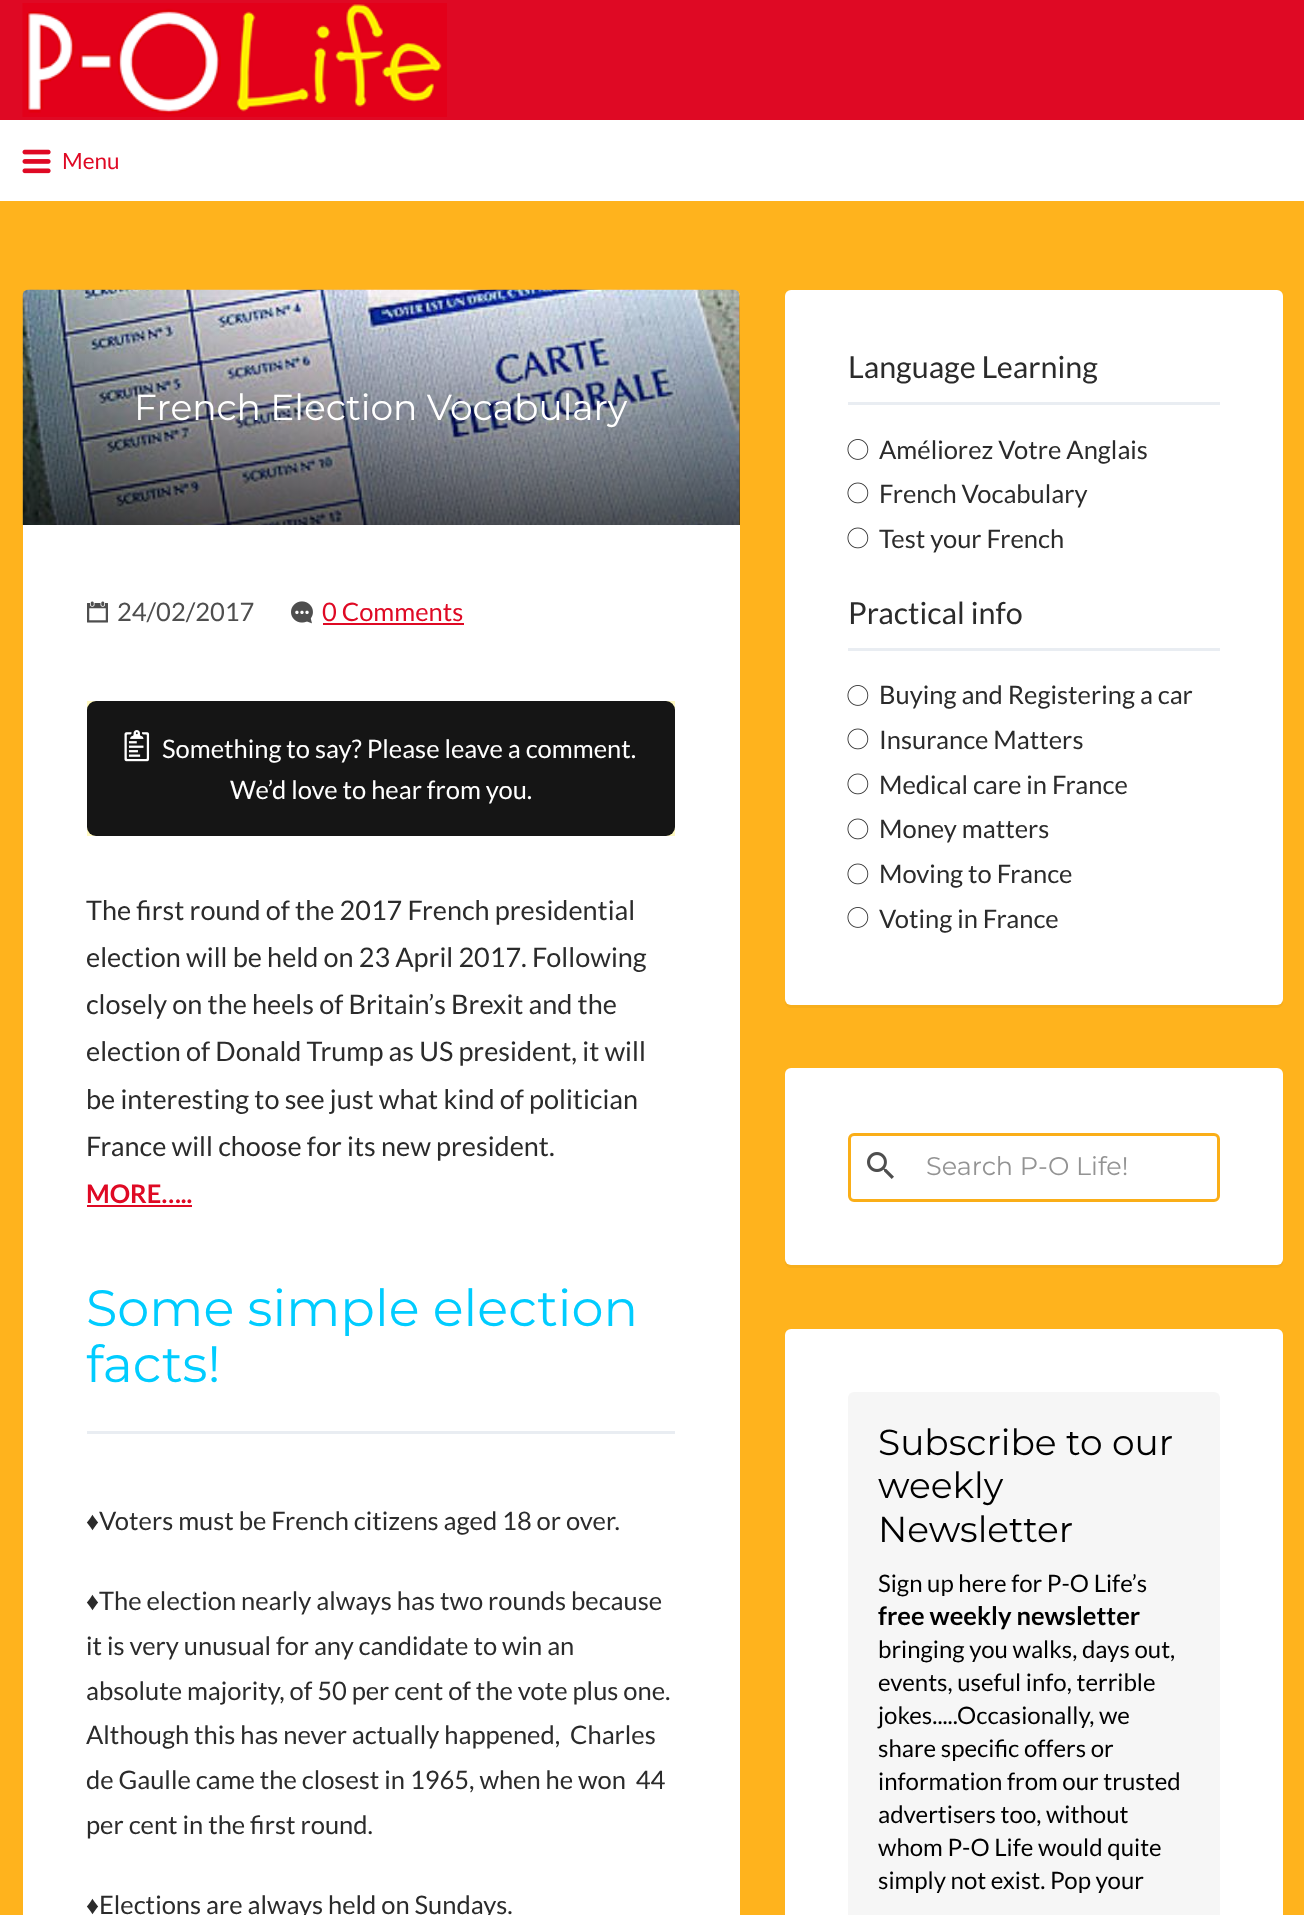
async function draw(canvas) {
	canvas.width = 1304;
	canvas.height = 1915;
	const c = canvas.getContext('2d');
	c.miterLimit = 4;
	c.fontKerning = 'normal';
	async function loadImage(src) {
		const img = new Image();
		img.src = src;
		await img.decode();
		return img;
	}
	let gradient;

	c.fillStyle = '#ffb31d';
	c.fillRect(0, 0, 1304, 1915);
	c.fillStyle = '#df0924';
	c.fillRect(0, 0, 1304, 120);
	c.drawImage(await loadImage('img1.png'), 22, 3, 425, 114);
	c.fillStyle = '#fff';
	c.fillRect(0, 120, 1304, 81);
	c.drawImage(await loadImage('img2.png'), 22, 149, 29, 25);
	c.font = '22.5px Lato';
	c.fillStyle = '#df0924';
	c.fillText('Menu', 62, 169);
	c.fillStyle = '#fff';
	c.beginPath();
	c.roundRect(23, 290, 717, 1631, 6);
	c.fill();
	c.fillStyle = '#f5a913';
	c.beginPath();
	c.roundRect(23, 290, 717, 235, [6, 6, 0, 0]);
	c.fill();
	c.drawImage(await loadImage('img3.png'), 22, 289, 718, 236);
	gradient = c.createLinearGradient(381, 289, 381, 525);
	gradient.addColorStop(0, '#00000000');
	gradient.addColorStop(1, '#000000a6');
	c.fillStyle = gradient;
	c.fillRect(23, 297, 717, 228);
	c.font = '36px Montserrat';
	c.fillStyle = '#fff';
	c.fillText('French Election Vocabulary', 134, 420);
	c.drawImage(await loadImage('img4.png'), 87, 601, 21, 22);
	c.font = '25.5px Lato';
	c.fillStyle = '#4e4e4e';
	c.fillText('24/02/2017', 117, 621);
	c.drawImage(await loadImage('img5.png'), 291, 601, 22, 23);
	c.fillStyle = '#df0924';
	c.fillText('0 Comments', 322, 621);
	c.fillRect(323, 623, 141, 2);
	c.fillStyle = '#fff9c0';
	c.fillRect(87, 701, 588, 135);
	c.fillStyle = '#151515';
	c.beginPath();
	c.roundRect(87, 701, 588, 135, 9);
	c.fill();
	c.drawImage(await loadImage('img6.png'), 124, 730, 26, 32);
	c.fillStyle = '#fff';
	c.fillText('Something to say? Please leave a comment.', 162, 758);
	c.fillText('We’d love to hear from you.', 230, 799);
	c.font = '27px Lato';
	c.fillStyle = '#2b2b2b';
	for (const [text, x, y] of [
		['The first round of the 2017 French presidential', 86, 920],
		['election will be held on 23 April 2017. Following', 86, 967],
		['closely on the heels of Britain’s Brexit and the', 86, 1014],
		['election of Donald Trump as US president, it will', 86, 1061],
		['be interesting to see just what kind of politician', 86, 1109],
		['France will choose for its new president.', 86, 1156],
	]) {
		c.fillText(text, x, y);
	}
	c.font = 'bold 25.5px Lato';
	c.fillStyle = '#df0924';
	c.fillText('MORE…..', 86, 1203);
	c.fillRect(87, 1205, 105, 2);
	c.fillStyle = '#e9edf2';
	c.fillRect(87, 1431, 588, 3);
	c.font = '51px Montserrat';
	c.fillStyle = '#0cf';
	c.fillText('Some simple election', 86, 1326);
	c.fillText('facts!', 86, 1382);
	c.font = '25.5px Liberation Sans';
	c.fillStyle = '#2b2b2b';
	c.fillText('♦', 86, 1530);
	c.font = '25.5px Lato';
	c.fillText('Voters must be French citizens aged 18 or over.', 99, 1530);
	c.font = '25.5px Liberation Sans';
	c.fillText('♦', 86, 1610);
	c.font = '25.5px Lato';
	for (const [text, x, y] of [
		['The election nearly always has two rounds because', 99, 1610],
		['it is very unusual for any candidate to win an', 86, 1655],
		['absolute majority, of 50 per cent of the vote plus one.', 86, 1700],
		['Although this has never actually happened,  Charles', 86, 1744],
		['de Gaulle came the closest in 1965, when he won  44', 86, 1789],
		['per cent in the first round.', 86, 1834],
	]) {
		c.fillText(text, x, y);
	}
	c.font = '25.5px Liberation Sans';
	c.fillText('♦', 86, 1914);
	c.font = '25.5px Lato';
	c.fillText('Elections are always held on Sundays.', 99, 1914);
	c.fillStyle = '#f7ae1c';
	c.beginPath();
	c.moveTo(785, 1001);
	c.lineTo(785, 1002);
	c.bezierCurveTo(785, 1005, 788, 1008, 791, 1008);
	c.lineTo(1277, 1008);
	c.bezierCurveTo(1280, 1008, 1283, 1005, 1283, 1002);
	c.lineTo(1283, 299);
	c.lineTo(1282, 297);
	c.lineTo(1282, 999);
	c.bezierCurveTo(1282, 1002, 1280, 1005, 1276, 1005);
	c.lineTo(790, 1005);
	c.bezierCurveTo(788, 1005, 786, 1004, 785, 1001);
	c.closePath();
	c.fill();
	c.fillStyle = '#fff';
	c.beginPath();
	c.roundRect(785, 290, 498, 715, 6);
	c.fill();
	c.font = '30.5px Lato';
	c.fillStyle = '#2b2b2b';
	c.fillText('Language Learning', 848, 378);
	c.fillStyle = '#e9edf2';
	c.fillRect(848, 402, 372, 3);
	c.drawImage(await loadImage('img7.png'), 847, 439, 22, 21);
	c.font = '25.5px Lato';
	c.fillStyle = '#2b2b2b';
	c.fillText('Améliorez Votre Anglais', 879, 459);
	c.drawImage(await loadImage('img8.png'), 847, 482, 22, 22);
	c.fillText('French Vocabulary', 879, 503);
	c.drawImage(await loadImage('img8.png'), 847, 527, 22, 22);
	c.fillText('Test your French', 879, 548);
	c.font = '30.5px Lato';
	c.fillText('Practical info', 848, 624);
	c.fillStyle = '#e9edf2';
	c.fillRect(848, 648, 372, 3);
	c.drawImage(await loadImage('img7.png'), 847, 685, 22, 21);
	c.font = '25.5px Lato';
	c.fillStyle = '#2b2b2b';
	c.fillText('Buying and Registering a car', 879, 704);
	c.drawImage(await loadImage('img8.png'), 847, 728, 22, 22);
	c.fillText('Insurance Matters', 879, 749);
	c.drawImage(await loadImage('img8.png'), 847, 773, 22, 22);
	c.fillText('Medical care in France', 879, 794);
	c.drawImage(await loadImage('img8.png'), 847, 818, 22, 22);
	c.fillText('Money matters', 879, 838);
	c.drawImage(await loadImage('img8.png'), 847, 863, 22, 22);
	c.fillText('Moving to France', 879, 883);
	c.drawImage(await loadImage('img7.png'), 847, 907, 22, 21);
	c.fillText('Voting in France', 879, 928);
	c.fillStyle = '#f7ae1c';
	c.beginPath();
	c.moveTo(785, 1261);
	c.lineTo(785, 1262);
	c.bezierCurveTo(785, 1265, 788, 1268, 791, 1268);
	c.lineTo(1277, 1268);
	c.bezierCurveTo(1280, 1268, 1283, 1265, 1283, 1262);
	c.lineTo(1283, 1077);
	c.lineTo(1282, 1075);
	c.lineTo(1282, 1258);
	c.bezierCurveTo(1282, 1262, 1280, 1264, 1276, 1264);
	c.lineTo(790, 1264);
	c.bezierCurveTo(788, 1264, 786, 1263, 785, 1261);
	c.closePath();
	c.fill();
	c.fillStyle = '#fff';
	c.beginPath();
	c.roundRect(785, 1068, 498, 197, 6);
	c.fill();
	c.beginPath();
	c.roundRect(849.5, 1134.5, 369, 66, 4.5);
	c.strokeStyle = '#faae18';
	c.lineWidth = 3;
	c.stroke();
	c.drawImage(await loadImage('img9.png'), 867, 1152, 27, 27);
	c.font = '25.5px Montserrat';
	c.fillStyle = '#939393';
	c.fillText('Search P-O Life!', 926, 1175);
	c.fillStyle = '#fff';
	c.beginPath();
	c.roundRect(785, 1329, 498, 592, 6);
	c.fill();
	c.fillStyle = '#f6f6f6';
	c.beginPath();
	c.roundRect(848, 1392, 372, 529, 6);
	c.fill();
	c.font = '36px Montserrat';
	c.fillStyle = '#000';
	for (const [text, x, y] of [
		['Subscribe to our', 878, 1455],
		['weekly', 878, 1498],
		['Newsletter', 878, 1542],
	]) {
		c.fillText(text, x, y);
	}
	c.font = '24px Lato';
	c.fillText('Sign up here for P-O Life’s', 878, 1592);
	c.font = 'bold 25.5px Lato';
	c.fillText('free weekly newsletter', 878, 1625);
	c.font = '24px Lato';
	for (const [text, x, y] of [
		['bringing you walks, days out,', 878, 1658],
		['events, useful info, terrible', 878, 1691],
		['jokes.....Occasionally, we', 878, 1724],
		['share specific offers or', 878, 1757],
		['information from our trusted', 878, 1790],
		['advertisers too, without', 878, 1823],
		['whom P-O Life would quite', 878, 1856],
		['simply not exist. Pop your', 878, 1889],
	]) {
		c.fillText(text, x, y);
	}
}

draw(document.querySelector('canvas'));
